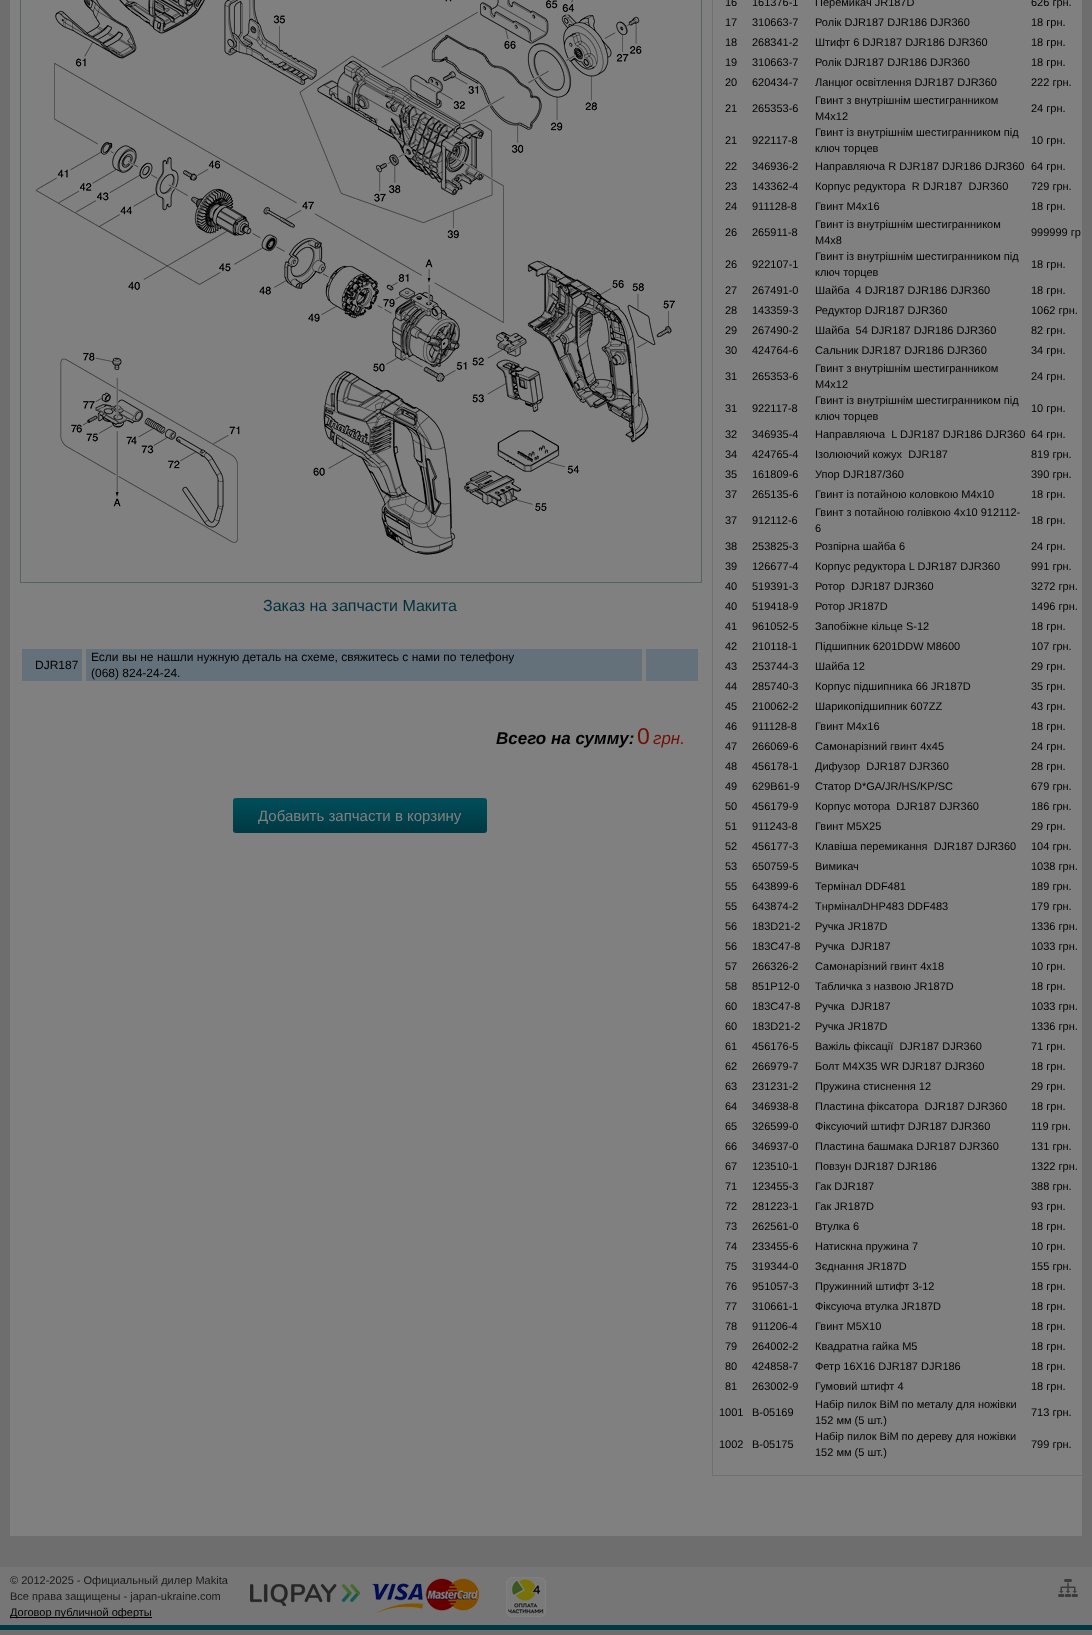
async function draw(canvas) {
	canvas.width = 1092;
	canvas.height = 1635;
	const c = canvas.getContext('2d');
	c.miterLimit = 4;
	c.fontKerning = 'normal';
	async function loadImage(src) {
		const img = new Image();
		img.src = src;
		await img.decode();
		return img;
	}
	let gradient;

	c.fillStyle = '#6e6e6e';
	c.fillRect(0, 0, 1092, 1635);
	c.fillStyle = '#808080';
	c.fillRect(10, 0, 1072, 1536);
	c.strokeStyle = '#576263';
	c.strokeRect(20.5, -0.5, 681, 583);
	c.drawImage(await loadImage('img1.png'), 35, 0, 640, 555);
	c.font = '16px Liberation Sans';
	c.fillStyle = '#002f3b';
	c.fillText('Заказ на запчасти Макита', 263, 611);
	c.fillStyle = '#64717a';
	c.fillRect(22, 649, 676, 32);
	c.strokeStyle = '#808080';
	c.lineWidth = 2;
	c.strokeRect(21, 648, 62, 34);
	c.font = '12px Liberation Sans';
	c.fillStyle = '#000';
	c.fillText('DJR187', 35, 669);
	c.strokeRect(85, 648, 558, 34);
	c.fillText('Если вы не нашли нужную деталь на схеме, свяжитесь с нами по телефону', 91, 661);
	c.fillText('(068) 824-24-24.', 91, 677);
	c.strokeRect(645, 648, 54, 34);
	c.font = 'italic bold 17px Liberation Sans';
	c.fillText('Всего на сумму:', 496, 744);
	c.font = '23px Liberation Sans';
	c.fillStyle = '#701003';
	c.fillText('0', 637, 744);
	c.font = 'italic 17px Liberation Sans';
	c.fillText('грн.', 653, 744);
	gradient = c.createLinearGradient(233, 798, 233, 833);
	gradient.addColorStop(0, '#004e5a');
	gradient.addColorStop(1, '#003943');
	c.fillStyle = gradient;
	c.beginPath();
	c.roundRect(233, 798, 254, 35, 3);
	c.fill();
	c.font = '15px Liberation Sans';
	c.fillStyle = '#808080';
	c.fillText('Добавить запчасти в корзину', 258, 821);
	c.save();
	c.beginPath();
	c.rect(10, 0, 1072, 1536);
	c.clip();
	c.strokeStyle = '#707070';
	c.lineWidth = 1;
	c.strokeRect(712.5, -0.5, 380, 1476);
	c.restore();
	c.font = '11px Liberation Sans';
	c.fillStyle = '#000';
	for (const [text, x, y] of [
		['16', 725, 6],
		['161376-1', 752, 6],
		['Перемикач JR187D', 815, 6],
		['626 грн.', 1031, 6],
		['17', 725, 26],
		['310663-7', 752, 26],
		['Ролік DJR187 DJR186 DJR360', 815, 26],
		['18 грн.', 1031, 26],
		['18', 725, 46],
		['268341-2', 752, 46],
		['Штифт 6 DJR187 DJR186 DJR360', 815, 46],
		['18 грн.', 1031, 46],
		['19', 725, 66],
		['310663-7', 752, 66],
		['Ролік DJR187 DJR186 DJR360', 815, 66],
		['18 грн.', 1031, 66],
		['20', 725, 86],
		['620434-7', 752, 86],
		['Ланцюг освітлення DJR187 DJR360', 815, 86],
		['222 грн.', 1031, 86],
		['21', 725, 112],
		['265353-6', 752, 112],
		['Гвинт з внутрішнім шестигранником', 815, 104],
		['M4x12', 815, 120],
		['24 грн.', 1031, 112],
		['21', 725, 144],
		['922117-8', 752, 144],
		['Гвинт із внутрішнім шестигранником під', 815, 136],
		['ключ торцев', 815, 152],
		['10 грн.', 1031, 144],
		['22', 725, 170],
		['346936-2', 752, 170],
		['Направляюча R DJR187 DJR186 DJR360', 815, 170],
		['64 грн.', 1031, 170],
		['23', 725, 190],
		['143362-4', 752, 190],
		['Корпус редуктора  R DJR187  DJR360', 815, 190],
		['729 грн.', 1031, 190],
		['24', 725, 210],
		['911128-8', 752, 210],
		['Гвинт M4x16', 815, 210],
		['18 грн.', 1031, 210],
		['26', 725, 236],
		['265911-8', 752, 236],
		['Гвинт із внутрішнім шестигранником', 815, 228],
		['M4x8', 815, 244],
		['999999 гр', 1031, 236],
		['26', 725, 268],
		['922107-1', 752, 268],
		['Гвинт із внутрішнім шестигранником під', 815, 260],
		['ключ торцев', 815, 276],
		['18 грн.', 1031, 268],
		['27', 725, 294],
		['267491-0', 752, 294],
		['Шайба  4 DJR187 DJR186 DJR360', 815, 294],
		['18 грн.', 1031, 294],
		['28', 725, 314],
		['143359-3', 752, 314],
		['Редуктор DJR187 DJR360', 815, 314],
		['1062 грн.', 1031, 314],
		['29', 725, 334],
		['267490-2', 752, 334],
		['Шайба  54 DJR187 DJR186 DJR360', 815, 334],
		['82 грн.', 1031, 334],
		['30', 725, 354],
		['424764-6', 752, 354],
		['Сальник DJR187 DJR186 DJR360', 815, 354],
		['34 грн.', 1031, 354],
		['31', 725, 380],
		['265353-6', 752, 380],
		['Гвинт з внутрішнім шестигранником', 815, 372],
		['M4x12', 815, 388],
		['24 грн.', 1031, 380],
		['31', 725, 412],
		['922117-8', 752, 412],
		['Гвинт із внутрішнім шестигранником під', 815, 404],
		['ключ торцев', 815, 420],
		['10 грн.', 1031, 412],
		['32', 725, 438],
		['346935-4', 752, 438],
		['Направляюча  L DJR187 DJR186 DJR360', 815, 438],
		['64 грн.', 1031, 438],
		['34', 725, 458],
		['424765-4', 752, 458],
		['Ізолюючий кожух  DJR187', 815, 458],
		['819 грн.', 1031, 458],
		['35', 725, 478],
		['161809-6', 752, 478],
		['Упор DJR187/360', 815, 478],
		['390 грн.', 1031, 478],
		['37', 725, 498],
		['265135-6', 752, 498],
		['Гвинт із потайною коловкою М4х10', 815, 498],
		['18 грн.', 1031, 498],
		['37', 725, 524],
		['912112-6', 752, 524],
		['Гвинт з потайною голівкою 4x10 912112-', 815, 516],
		['6', 815, 532],
		['18 грн.', 1031, 524],
		['38', 725, 550],
		['253825-3', 752, 550],
		['Розпірна шайба 6', 815, 550],
		['24 грн.', 1031, 550],
		['39', 725, 570],
		['126677-4', 752, 570],
		['Корпус редуктора L DJR187 DJR360', 815, 570],
		['991 грн.', 1031, 570],
		['40', 725, 590],
		['519391-3', 752, 590],
		['Ротор  DJR187 DJR360', 815, 590],
		['3272 грн.', 1031, 590],
		['40', 725, 610],
		['519418-9', 752, 610],
		['Ротор JR187D', 815, 610],
		['1496 грн.', 1031, 610],
		['41', 725, 630],
		['961052-5', 752, 630],
		['Запобіжне кільце S-12', 815, 630],
		['18 грн.', 1031, 630],
		['42', 725, 650],
		['210118-1', 752, 650],
		['Підшипник 6201DDW M8600', 815, 650],
		['107 грн.', 1031, 650],
		['43', 725, 670],
		['253744-3', 752, 670],
		['Шайба 12', 815, 670],
		['29 грн.', 1031, 670],
		['44', 725, 690],
		['285740-3', 752, 690],
		['Корпус підшипника 66 JR187D', 815, 690],
		['35 грн.', 1031, 690],
		['45', 725, 710],
		['210062-2', 752, 710],
		['Шарикопідшипник 607ZZ', 815, 710],
		['43 грн.', 1031, 710],
		['46', 725, 730],
		['911128-8', 752, 730],
		['Гвинт M4x16', 815, 730],
		['18 грн.', 1031, 730],
		['47', 725, 750],
		['266069-6', 752, 750],
		['Самонарізний гвинт 4x45', 815, 750],
		['24 грн.', 1031, 750],
		['48', 725, 770],
		['456178-1', 752, 770],
		['Дифузор  DJR187 DJR360', 815, 770],
		['28 грн.', 1031, 770],
		['49', 725, 790],
		['629B61-9', 752, 790],
		['Статор D*GA/JR/HS/KP/SC', 815, 790],
		['679 грн.', 1031, 790],
		['50', 725, 810],
		['456179-9', 752, 810],
		['Корпус мотора  DJR187 DJR360', 815, 810],
		['186 грн.', 1031, 810],
		['51', 725, 830],
		['911243-8', 752, 830],
		['Гвинт M5X25', 815, 830],
		['29 грн.', 1031, 830],
		['52', 725, 850],
		['456177-3', 752, 850],
		['Клавіша перемикання  DJR187 DJR360', 815, 850],
		['104 грн.', 1031, 850],
		['53', 725, 870],
		['650759-5', 752, 870],
		['Вимикач', 815, 870],
		['1038 грн.', 1031, 870],
		['55', 725, 890],
		['643899-6', 752, 890],
		['Термінал DDF481', 815, 890],
		['189 грн.', 1031, 890],
		['55', 725, 910],
		['643874-2', 752, 910],
		['ТнрміналDHP483 DDF483', 815, 910],
		['179 грн.', 1031, 910],
		['56', 725, 930],
		['183D21-2', 752, 930],
		['Ручка JR187D', 815, 930],
		['1336 грн.', 1031, 930],
		['56', 725, 950],
		['183C47-8', 752, 950],
		['Ручка  DJR187', 815, 950],
		['1033 грн.', 1031, 950],
		['57', 725, 970],
		['266326-2', 752, 970],
		['Самонарізний гвинт 4x18', 815, 970],
		['10 грн.', 1031, 970],
		['58', 725, 990],
		['851P12-0', 752, 990],
		['Табличка з назвою JR187D', 815, 990],
		['18 грн.', 1031, 990],
		['60', 725, 1010],
		['183C47-8', 752, 1010],
		['Ручка  DJR187', 815, 1010],
		['1033 грн.', 1031, 1010],
		['60', 725, 1030],
		['183D21-2', 752, 1030],
		['Ручка JR187D', 815, 1030],
		['1336 грн.', 1031, 1030],
		['61', 725, 1050],
		['456176-5', 752, 1050],
		['Важіль фіксації  DJR187 DJR360', 815, 1050],
		['71 грн.', 1031, 1050],
		['62', 725, 1070],
		['266979-7', 752, 1070],
		['Болт M4X35 WR DJR187 DJR360', 815, 1070],
		['18 грн.', 1031, 1070],
		['63', 725, 1090],
		['231231-2', 752, 1090],
		['Пружина стиснення 12', 815, 1090],
		['29 грн.', 1031, 1090],
		['64', 725, 1110],
		['346938-8', 752, 1110],
		['Пластина фіксатора  DJR187 DJR360', 815, 1110],
		['18 грн.', 1031, 1110],
		['65', 725, 1130],
		['326599-0', 752, 1130],
		['Фіксуючий штифт DJR187 DJR360', 815, 1130],
		['119 грн.', 1031, 1130],
		['66', 725, 1150],
		['346937-0', 752, 1150],
		['Пластина башмака DJR187 DJR360', 815, 1150],
		['131 грн.', 1031, 1150],
		['67', 725, 1170],
		['123510-1', 752, 1170],
		['Повзун DJR187 DJR186', 815, 1170],
		['1322 грн.', 1031, 1170],
		['71', 725, 1190],
		['123455-3', 752, 1190],
		['Гак DJR187', 815, 1190],
		['388 грн.', 1031, 1190],
		['72', 725, 1210],
		['281223-1', 752, 1210],
		['Гак JR187D', 815, 1210],
		['93 грн.', 1031, 1210],
		['73', 725, 1230],
		['262561-0', 752, 1230],
		['Втулка 6', 815, 1230],
		['18 грн.', 1031, 1230],
		['74', 725, 1250],
		['233455-6', 752, 1250],
		['Натискна пружина 7', 815, 1250],
		['10 грн.', 1031, 1250],
		['75', 725, 1270],
		['319344-0', 752, 1270],
		['Зєднання JR187D', 815, 1270],
		['155 грн.', 1031, 1270],
		['76', 725, 1290],
		['951057-3', 752, 1290],
		['Пружинний штифт 3-12', 815, 1290],
		['18 грн.', 1031, 1290],
		['77', 725, 1310],
		['310661-1', 752, 1310],
		['Фіксуюча втулка JR187D', 815, 1310],
		['18 грн.', 1031, 1310],
		['78', 725, 1330],
		['911206-4', 752, 1330],
		['Гвинт M5X10', 815, 1330],
		['18 грн.', 1031, 1330],
		['79', 725, 1350],
		['264002-2', 752, 1350],
		['Квадратна гайка M5', 815, 1350],
		['18 грн.', 1031, 1350],
		['80', 725, 1370],
		['424858-7', 752, 1370],
		['Фетр 16X16 DJR187 DJR186', 815, 1370],
		['18 грн.', 1031, 1370],
		['81', 725, 1390],
		['263002-9', 752, 1390],
		['Гумовий штифт 4', 815, 1390],
		['18 грн.', 1031, 1390],
		['1001', 719, 1416],
		['B-05169', 752, 1416],
		['Набiр пилок BiM по металу для ножiвки', 815, 1408],
		['152 мм (5 шт.)', 815, 1424],
		['713 грн.', 1031, 1416],
		['1002', 719, 1448],
		['B-05175', 752, 1448],
		['Набiр пилок BiM по дереву для ножiвки', 815, 1440],
		['152 мм (5 шт.)', 815, 1456],
		['799 грн.', 1031, 1448],
	]) {
		c.fillText(text, x, y);
	}
	c.fillStyle = '#767676';
	c.fillRect(0, 1567, 1092, 58);
	c.fillStyle = '#003843';
	c.fillRect(0, 1625, 1092, 5);
	c.fillStyle = '#1a1a1a';
	c.fillText('© 2012-2025 - Официальный дилер Makita', 10, 1584);
	c.fillText('Все права защищены - japan-ukraine.com', 10, 1600);
	c.fillStyle = '#000';
	c.fillRect(10, 1617, 142, 1);
	c.fillText('Договор публичной оферты', 10, 1616);
	c.drawImage(await loadImage('img2.png'), 250, 1578, 229, 35);
	c.drawImage(await loadImage('img3.png'), 506, 1577, 40, 40);
	c.drawImage(await loadImage('img4.png'), 1058, 1579, 20, 18);
}

draw(document.querySelector('canvas'));
